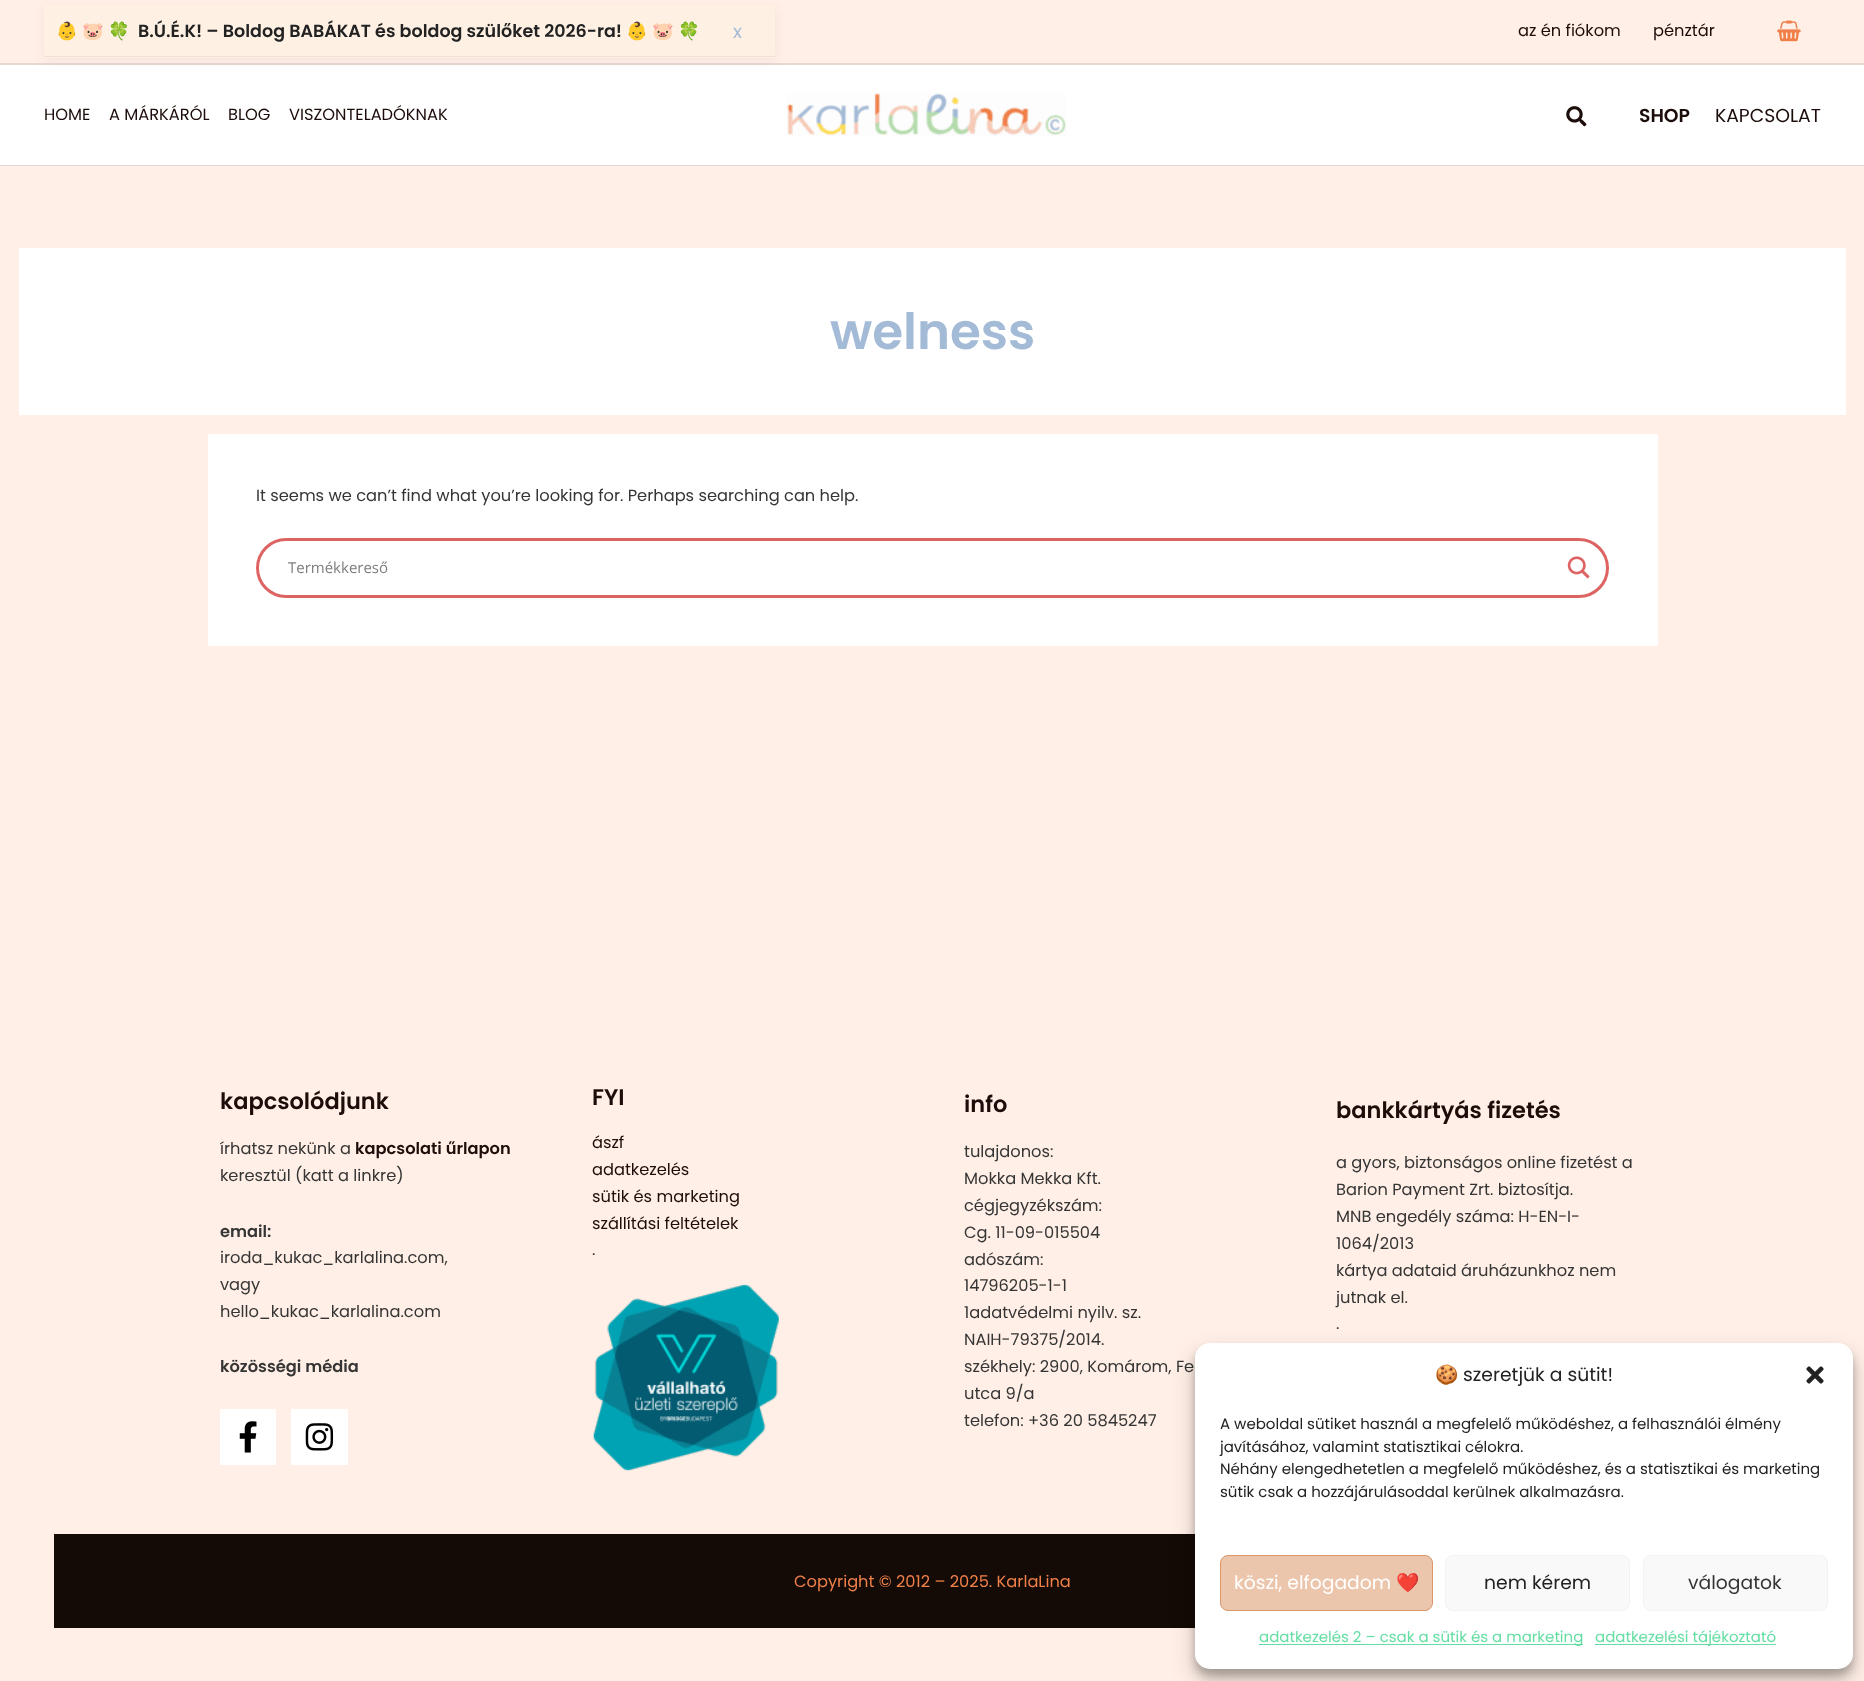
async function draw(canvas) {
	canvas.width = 1864;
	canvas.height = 1681;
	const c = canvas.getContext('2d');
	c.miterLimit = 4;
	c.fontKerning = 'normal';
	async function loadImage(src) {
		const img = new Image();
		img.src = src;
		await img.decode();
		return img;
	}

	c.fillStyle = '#ffefe6';
	c.fillRect(0, 0, 1864, 1681);
	c.fillStyle = '#e5d7d1';
	c.fillRect(0, 63, 1864, 2);
	c.fillStyle = '#fff';
	c.fillRect(0, 65, 1864, 100);
	c.fillStyle = '#0000000d';
	c.filter = 'blur(6px)';
	c.beginPath();
	c.rect(44, 8, 731, 52);
	c.fill();
	c.filter = 'none';
	c.fillStyle = '#fef0e3';
	c.fillRect(44, 5, 731, 53);
	c.fillStyle = '#efe2d5';
	c.fillRect(44, 56, 731, 1);
	c.font = 'bold 17.5px Noto Color Emoji';
	c.fillStyle = '#222';
	for (const [text, x, y] of [
		['👶', 56, 37],
		['🐷', 82, 37],
		['🍀', 108, 37],
	]) {
		c.fillText(text, x, y);
	}
	c.font = '600 17.5px Poppins';
	c.fillText('B.Ú.É.K! – Boldog BABÁKAT és boldog szülőket 2026-ra!', 138, 37);
	c.font = 'bold 17.5px Noto Color Emoji';
	for (const [text, x, y] of [
		['👶', 626, 37],
		['🐷', 652, 37],
		['🍀', 678, 37],
	]) {
		c.fillText(text, x, y);
	}
	c.font = '18.75px Poppins';
	c.fillStyle = '#a4bbd7';
	c.fillText('x', 733, 38);
	c.font = '16.25px Poppins';
	c.fillStyle = '#1c0d0a';
	c.fillText('az én fiókom', 1518, 36);
	c.fillText('pénztár', 1653, 36);
	c.drawImage(await loadImage('img1.png'), 1777, 20, 24, 22);
	c.fillStyle = '#e5d7d1';
	c.fillRect(0, 165, 1864, 1);
	c.fillStyle = '#1c0d0a';
	for (const [text, x, y] of [
		['HOME', 44, 120],
		['A MÁRKÁRÓL', 109, 120],
		['BLOG', 228, 120],
		['VISZONTELADÓKNAK', 289, 120],
	]) {
		c.fillText(text, x, y);
	}
	c.drawImage(await loadImage('img2.png'), 787, 93, 280, 43);
	c.drawImage(await loadImage('img3.png'), 1566, 106, 21, 21);
	c.font = '600 18.75px Poppins';
	c.fillText('SHOP', 1639, 122);
	c.font = '18.75px Poppins';
	c.fillText('KAPCSOLAT', 1715, 122);
	c.fillStyle = '#fff';
	c.fillRect(19, 248, 1827, 167);
	c.font = '600 50px Poppins';
	c.fillStyle = '#a4bbd7';
	c.fillText('welness', 830, 349);
	c.fillStyle = '#fff';
	c.fillRect(208, 434, 1450, 212);
	c.font = '16.25px Poppins';
	c.fillStyle = '#353535';
	c.fillText('It seems we can’t find what you’re looking for. Perhaps searching can help.', 256, 501);
	c.beginPath();
	c.roundRect(257.5, 539.5, 1350, 57, 28.5);
	c.strokeStyle = '#de6464';
	c.lineWidth = 3;
	c.stroke();
	c.font = '15px Open Sans';
	c.fillStyle = '#7d7d7d';
	c.fillText('Termékkereső', 288, 573);
	c.drawImage(await loadImage('img4.png'), 1567, 556, 23, 23);
	c.font = '600 22.5px Poppins';
	c.fillStyle = '#1c0d0a';
	c.fillText('kapcsolódjunk', 220, 1109);
	c.font = '16.25px Poppins';
	c.fillStyle = '#353535';
	c.fillText('írhatsz nekünk a', 220, 1154);
	c.font = '600 16.25px Poppins';
	c.fillStyle = '#1c0d0a';
	c.fillText('kapcsolati űrlapon', 355, 1154);
	c.font = '16.25px Poppins';
	c.fillStyle = '#353535';
	c.fillText('keresztül (katt a linkre)', 220, 1181);
	c.font = '600 16.25px Poppins';
	c.fillText('email:', 220, 1237);
	c.font = '16.25px Poppins';
	for (const [text, x, y] of [
		['iroda_kukac_karlalina.com,', 220, 1263],
		['vagy', 220, 1290],
		['hello_kukac_karlalina.com', 220, 1317],
	]) {
		c.fillText(text, x, y);
	}
	c.font = '600 16.25px Poppins';
	c.fillText('közösségi média', 220, 1372);
	c.fillStyle = '#fff';
	c.fillRect(220, 1409, 56, 56);
	c.drawImage(await loadImage('img5.png'), 239, 1421, 18, 32);
	c.fillRect(291, 1409, 57, 56);
	c.drawImage(await loadImage('img6.png'), 305, 1423, 29, 28);
	c.font = '600 22.5px Poppins';
	c.fillStyle = '#1c0d0a';
	c.fillText('FYI', 592, 1105);
	c.font = '16.25px Poppins';
	for (const [text, x, y] of [
		['ászf', 592, 1148],
		['adatkezelés', 592, 1175],
		['sütik és marketing', 592, 1202],
		['szállítási feltételek', 592, 1229],
	]) {
		c.fillText(text, x, y);
	}
	c.fillStyle = '#353535';
	c.fillText('.', 592, 1255);
	c.drawImage(await loadImage('img7.png'), 593, 1284, 186, 187);
	c.font = '600 22.5px Poppins';
	c.fillStyle = '#1c0d0a';
	c.fillText('info', 964, 1112);
	c.font = '16.25px Poppins';
	c.fillStyle = '#353535';
	for (const [text, x, y] of [
		['tulajdonos:', 964, 1157],
		['Mokka Mekka Kft.', 964, 1184],
		['cégjegyzékszám:', 964, 1211],
		['Cg. 11-09-015504', 964, 1238],
		['adószám:', 964, 1265],
		['14796205-1-1', 964, 1291],
		['1adatvédelmi nyilv. sz.', 964, 1318],
		['NAIH-79375/2014.', 964, 1345],
		['székhely: 2900, Komárom, Fe', 964, 1372],
		['utca 9/a', 964, 1399],
		['telefon: +36 20 5845247', 964, 1426],
	]) {
		c.fillText(text, x, y);
	}
	c.font = '600 22.5px Poppins';
	c.fillStyle = '#1c0d0a';
	c.fillText('bankkártyás fizetés', 1336, 1118);
	c.font = '16.25px Poppins';
	c.fillStyle = '#353535';
	for (const [text, x, y] of [
		['a gyors, biztonságos online fizetést a', 1336, 1168],
		['Barion Payment Zrt. biztosítja.', 1336, 1195],
		['MNB engedély száma: H-EN-I-', 1336, 1222],
		['1064/2013', 1336, 1249],
		['kártya adataid áruházunkhoz nem', 1336, 1276],
		['jutnak el.', 1336, 1303],
		['.', 1336, 1329],
	]) {
		c.fillText(text, x, y);
	}
	c.fillStyle = '#140b06';
	c.fillRect(54, 1534, 1141, 94);
	c.fillStyle = '#f07f49';
	c.fillText('Copyright © 2012 – 2025. KarlaLina', 794, 1587);
	c.fillStyle = '#0000003b';
	c.filter = 'blur(4px)';
	c.beginPath();
	c.roundRect(1195, 1350, 658, 326, 15);
	c.fill();
	c.filter = 'none';
	c.fillStyle = '#00000030';
	c.filter = 'blur(12.5px)';
	c.beginPath();
	c.roundRect(1195, 1355, 658, 326, 15);
	c.fill();
	c.filter = 'none';
	c.fillStyle = '#fff';
	c.beginPath();
	c.roundRect(1195, 1343, 658, 326, 15);
	c.fill();
	c.font = '18.75px Noto Color Emoji';
	c.fillStyle = '#222';
	c.fillText('🍪', 1435, 1381);
	c.font = '18.75px Poppins';
	c.fillText('szeretjük a sütit!', 1463, 1381);
	c.drawImage(await loadImage('img8.png'), 1806, 1366, 18, 18);
	c.font = '15px Poppins';
	for (const [text, x, y] of [
		['A weboldal sütiket használ a megfelelő működéshez, a felhasználói élmény', 1220, 1429],
		['javításához, valamint statisztikai célokra.', 1220, 1452],
		['Néhány elengedhetetlen a megfelelő működéshez, és a statisztikai és marketing', 1220, 1474],
		['sütik csak a hozzájárulásoddal kerülnek alkalmazásra.', 1220, 1497],
	]) {
		c.fillText(text, x, y);
	}
	c.fillStyle = '#ecc6ac';
	c.beginPath();
	c.roundRect(1220.5, 1555.5, 212, 55, 7.5);
	c.fill();
	c.strokeStyle = '#dc9667';
	c.lineWidth = 1;
	c.stroke();
	c.font = '18.75px Poppins';
	c.fillStyle = '#fff';
	c.fillText('köszi, elfogadom', 1234, 1589);
	c.font = '18.75px Noto Color Emoji';
	c.fillText('❤️', 1396, 1589);
	c.fillStyle = '#f9f9f9';
	c.beginPath();
	c.roundRect(1445.5, 1555.5, 184, 55, 7.5);
	c.fill();
	c.strokeStyle = '#f2f2f2';
	c.stroke();
	c.font = '18.75px Poppins';
	c.fillStyle = '#222';
	c.fillText('nem kérem', 1484, 1589);
	c.fillStyle = '#f9f9f9';
	c.beginPath();
	c.roundRect(1643.5, 1555.5, 184, 55, 7.5);
	c.fill();
	c.stroke();
	c.fillStyle = '#353535';
	c.fillText('válogatok', 1688, 1589);
	c.fillStyle = '#64dea3';
	c.fillRect(1259, 1644, 324, 1);
	c.font = '15px Poppins';
	c.fillText('adatkezelés 2 – csak a sütik és a marketing', 1259, 1642);
	c.fillRect(1595, 1644, 181, 1);
	c.fillText('adatkezelési tájékoztató', 1595, 1642);
}

draw(document.querySelector('canvas'));
